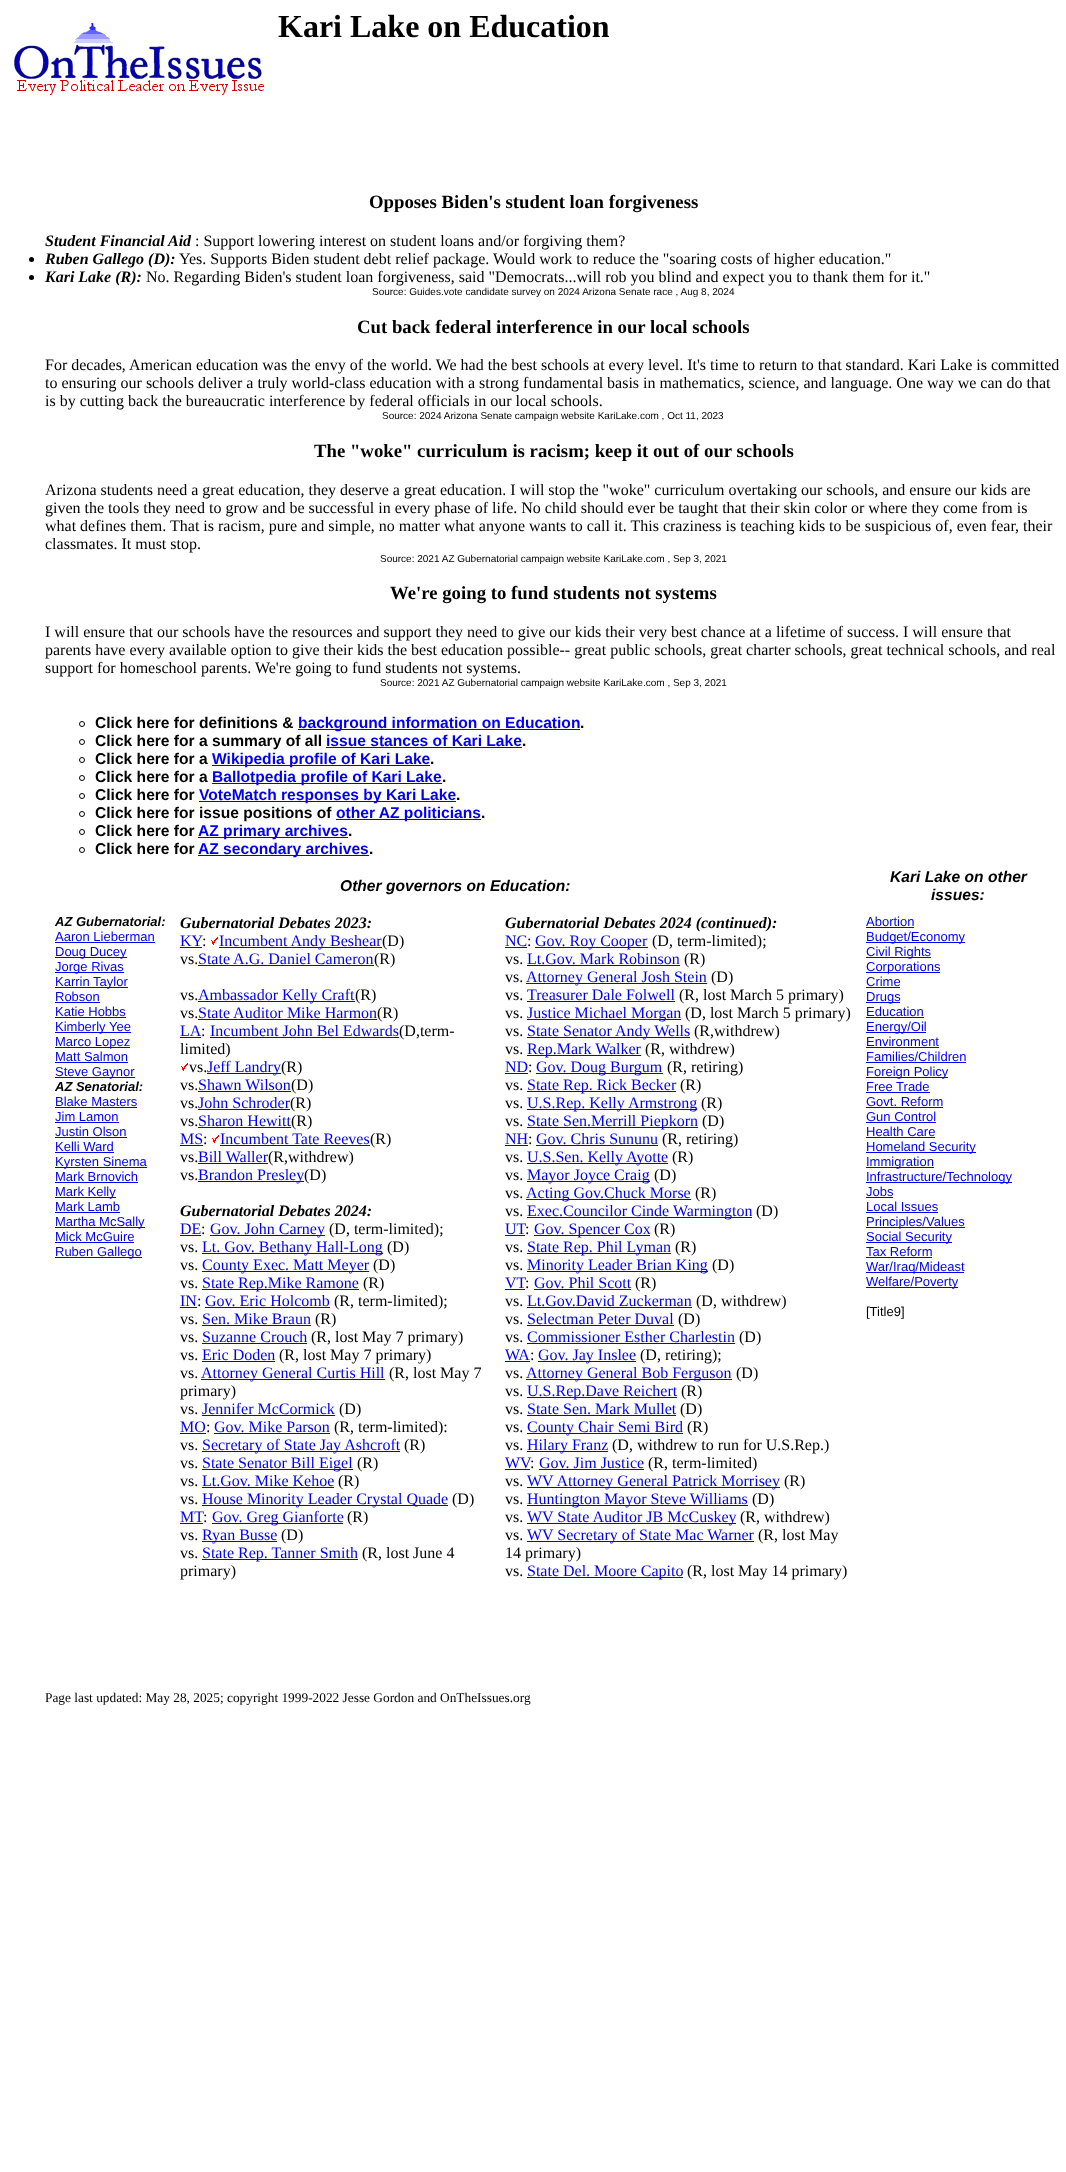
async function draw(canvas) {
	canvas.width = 1066;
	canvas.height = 2172;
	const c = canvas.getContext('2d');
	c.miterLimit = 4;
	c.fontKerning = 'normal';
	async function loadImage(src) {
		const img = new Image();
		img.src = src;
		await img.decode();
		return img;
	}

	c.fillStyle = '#fff';
	c.fillRect(0, 0, 1066, 2172);
	c.drawImage(await loadImage('img1.png'), 14, 23, 251, 72);
	c.font = 'bold 32px Liberation Serif';
	c.fillStyle = '#000';
	c.fillText('Kari Lake on Education', 278, 37);
	c.font = 'bold 18.75px Liberation Serif';
	c.fillText('Opposes Biden\'s student loan forgiveness', 369, 208);
	c.font = 'italic bold 16px Liberation Serif';
	c.fillText('Student Financial Aid', 45, 246);
	c.font = '16px Liberation Serif';
	c.fillText(': Support lowering interest on student loans and/or forgiving them?', 195, 246);
	c.beginPath();
	c.arc(31.5, 259.5, 2.5, 0, 2 * Math.PI);
	c.fill();
	c.font = 'italic bold 16px Liberation Serif';
	c.fillText('Ruben Gallego (D):', 45, 264);
	c.font = '16px Liberation Serif';
	c.fillText('Yes. Supports Biden student debt relief package. Would work to reduce the "soaring costs of higher education."', 179, 264);
	c.beginPath();
	c.arc(31.5, 277.5, 2.5, 0, 2 * Math.PI);
	c.fill();
	c.font = 'italic bold 16px Liberation Serif';
	c.fillText('Kari Lake (R):', 45, 282);
	c.font = '16px Liberation Serif';
	c.fillText('No. Regarding Biden\'s student loan forgiveness, said "Democrats...will rob you blind and expect you to thank them for it."', 146, 282);
	c.font = '10px Liberation Sans';
	c.fillText('Source: Guides.vote candidate survey on 2024 Arizona Senate race , Aug 8, 2024', 372, 295);
	c.font = 'bold 18.75px Liberation Serif';
	c.fillText('Cut back federal interference in our local schools', 357, 333);
	c.font = '16px Liberation Serif';
	for (const [text, x, y] of [
		['For decades, American education was the envy of the world. We had the best schools at every level. It\'s time to return to that standard. Kari Lake is committed', 45, 370],
		['to ensuring our schools deliver a truly world-class education with a strong fundamental basis in mathematics, science, and language. One way we can do that', 45, 388],
		['is by cutting back the bureaucratic interference by federal officials in our local schools.', 45, 406],
	]) {
		c.fillText(text, x, y);
	}
	c.font = '10px Liberation Sans';
	c.fillText('Source: 2024 Arizona Senate campaign website KariLake.com , Oct 11, 2023', 382, 419);
	c.font = 'bold 18.75px Liberation Serif';
	c.fillText('The "woke" curriculum is racism; keep it out of our schools', 314, 457);
	c.font = '16px Liberation Serif';
	for (const [text, x, y] of [
		['Arizona students need a great education, they deserve a great education. I will stop the "woke" curriculum overtaking our schools, and ensure our kids are', 45, 495],
		['given the tools they need to grow and be successful in every phase of life. No child should ever be taught that their skin color or where they come from is', 45, 513],
		['what defines them. That is racism, pure and simple, no matter what anyone wants to call it. This craziness is teaching kids to be suspicious of, even fear, their', 45, 531],
		['classmates. It must stop.', 45, 549],
	]) {
		c.fillText(text, x, y);
	}
	c.font = '10px Liberation Sans';
	c.fillText('Source: 2021 AZ Gubernatorial campaign website KariLake.com , Sep 3, 2021', 380, 562);
	c.font = 'bold 18.75px Liberation Serif';
	c.fillText('We\'re going to fund students not systems', 390, 599);
	c.font = '16px Liberation Serif';
	for (const [text, x, y] of [
		['I will ensure that our schools have the resources and support they need to give our kids their very best chance at a lifetime of success. I will ensure that', 45, 637],
		['parents have every available option to give their kids the best education possible-- great public schools, great charter schools, great technical schools, and real', 45, 655],
		['support for homeschool parents. We\'re going to fund students not systems.', 45, 673],
	]) {
		c.fillText(text, x, y);
	}
	c.font = '10px Liberation Sans';
	c.fillText('Source: 2021 AZ Gubernatorial campaign website KariLake.com , Sep 3, 2021', 380, 686);
	c.beginPath();
	c.arc(82, 724, 2.5, 0, 2 * Math.PI);
	c.strokeStyle = '#000';
	c.stroke();
	c.font = 'bold 15.6px Liberation Sans';
	c.fillText('Click here for definitions &', 95, 728);
	c.fillStyle = '#00e';
	c.fillRect(298, 729, 282, 1);
	c.fillText('background information on Education', 298, 728);
	c.fillStyle = '#000';
	c.fillText('.', 580, 728);
	c.beginPath();
	c.arc(82, 742, 2.5, 0, 2 * Math.PI);
	c.stroke();
	c.fillText('Click here for a summary of all', 95, 746);
	c.fillStyle = '#00e';
	c.fillText('issue stances of Kari Lake', 326, 746);
	c.fillRect(326, 747, 196, 1);
	c.fillStyle = '#000';
	c.fillText('.', 522, 746);
	c.beginPath();
	c.arc(82, 760, 2.5, 0, 2 * Math.PI);
	c.stroke();
	c.fillText('Click here for a', 95, 764);
	c.fillStyle = '#00e';
	c.fillRect(212, 765, 218, 1);
	c.fillText('Wikipedia profile of Kari Lake', 212, 764);
	c.fillStyle = '#000';
	c.fillText('.', 430, 764);
	c.beginPath();
	c.arc(82, 778, 2.5, 0, 2 * Math.PI);
	c.stroke();
	c.fillText('Click here for a', 95, 782);
	c.fillStyle = '#00e';
	c.fillRect(212, 783, 230, 1);
	c.fillText('Ballotpedia profile of Kari Lake', 212, 782);
	c.fillStyle = '#000';
	c.fillText('.', 442, 782);
	c.beginPath();
	c.arc(82, 796, 2.5, 0, 2 * Math.PI);
	c.stroke();
	c.fillText('Click here for', 95, 800);
	c.fillStyle = '#00e';
	c.fillRect(199, 801, 257, 1);
	c.fillText('VoteMatch responses by Kari Lake', 199, 800);
	c.fillStyle = '#000';
	c.fillText('.', 456, 800);
	c.beginPath();
	c.arc(82, 814, 2.5, 0, 2 * Math.PI);
	c.stroke();
	c.fillText('Click here for issue positions of', 95, 818);
	c.fillStyle = '#00e';
	c.fillRect(336, 819, 145, 1);
	c.fillText('other AZ politicians', 336, 818);
	c.fillStyle = '#000';
	c.fillText('.', 481, 818);
	c.beginPath();
	c.arc(82, 832, 2.5, 0, 2 * Math.PI);
	c.stroke();
	c.fillText('Click here for', 95, 836);
	c.fillStyle = '#00e';
	c.fillRect(198, 837, 150, 1);
	c.fillText('AZ primary archives', 198, 836);
	c.fillStyle = '#000';
	c.fillText('.', 348, 836);
	c.beginPath();
	c.arc(82, 850, 2.5, 0, 2 * Math.PI);
	c.stroke();
	c.fillText('Click here for', 95, 854);
	c.fillStyle = '#00e';
	c.fillRect(198, 855, 171, 1);
	c.fillText('AZ secondary archives', 198, 854);
	c.fillStyle = '#000';
	c.fillText('.', 369, 854);
	c.font = 'italic bold 15.6px Liberation Sans';
	for (const [text, x, y] of [
		['Other governors on Education:', 340, 891],
		['Kari Lake on other', 890, 882],
		['issues:', 931, 900],
	]) {
		c.fillText(text, x, y);
	}
	c.font = 'italic bold 13px Liberation Sans';
	c.fillText('AZ Gubernatorial:', 55, 926);
	c.font = '13px Liberation Sans';
	c.fillStyle = '#00e';
	c.fillText('Aaron Lieberman', 55, 941);
	c.fillRect(55, 942, 100, 1);
	c.fillRect(55, 957, 72, 1);
	c.fillText('Doug Ducey', 55, 956);
	c.fillRect(55, 972, 69, 1);
	c.fillText('Jorge Rivas', 55, 971);
	c.fillRect(55, 987, 73, 1);
	c.fillText('Karrin Taylor', 55, 986);
	c.fillText('Robson', 55, 1001);
	c.fillRect(55, 1002, 45, 1);
	c.fillText('Katie Hobbs', 55, 1016);
	c.fillRect(55, 1017, 71, 1);
	c.fillRect(55, 1032, 76, 1);
	c.fillText('Kimberly Yee', 55, 1031);
	c.fillRect(55, 1047, 75, 1);
	c.fillText('Marco Lopez', 55, 1046);
	c.fillText('Matt Salmon', 55, 1061);
	c.fillRect(55, 1062, 73, 1);
	c.fillRect(55, 1077, 80, 1);
	c.fillText('Steve Gaynor', 55, 1076);
	c.font = 'italic bold 13px Liberation Sans';
	c.fillStyle = '#000';
	c.fillText('AZ Senatorial:', 55, 1091);
	c.font = '13px Liberation Sans';
	c.fillStyle = '#00e';
	c.fillText('Blake Masters', 55, 1106);
	c.fillRect(55, 1107, 82, 1);
	c.fillText('Jim Lamon', 55, 1121);
	c.fillRect(55, 1122, 64, 1);
	c.fillText('Justin Olson', 55, 1136);
	c.fillRect(55, 1137, 72, 1);
	c.fillText('Kelli Ward', 55, 1151);
	c.fillRect(55, 1152, 59, 1);
	c.fillRect(55, 1167, 92, 1);
	c.fillText('Kyrsten Sinema', 55, 1166);
	c.fillText('Mark Brnovich', 55, 1181);
	c.fillRect(55, 1182, 83, 1);
	c.fillRect(55, 1197, 61, 1);
	c.fillText('Mark Kelly', 55, 1196);
	c.fillText('Mark Lamb', 55, 1211);
	c.fillRect(55, 1212, 65, 1);
	c.fillRect(55, 1227, 90, 1);
	c.fillText('Martha McSally', 55, 1226);
	c.fillText('Mick McGuire', 55, 1241);
	c.fillRect(55, 1242, 79, 1);
	c.fillRect(55, 1257, 87, 1);
	c.fillText('Ruben Gallego', 55, 1256);
	c.font = 'italic bold 16px Liberation Serif';
	c.fillStyle = '#000';
	c.fillText('Gubernatorial Debates 2023:', 180, 928);
	c.font = '16px Liberation Serif';
	c.fillStyle = '#00e';
	c.fillText('KY', 180, 946);
	c.fillRect(180, 947, 22, 1);
	c.fillStyle = '#000';
	c.fillText(':', 202, 946);
	c.drawImage(await loadImage('img2.png'), 211, 937, 7, 8);
	c.fillStyle = '#00e';
	c.fillRect(219, 947, 163, 1);
	c.fillText('Incumbent Andy Beshear', 219, 946);
	c.fillStyle = '#000';
	c.fillText('(D)', 382, 946);
	c.fillText('vs.', 180, 964);
	c.fillStyle = '#00e';
	c.fillText('State A.G. Daniel Cameron', 198, 964);
	c.fillRect(198, 965, 176, 1);
	c.fillStyle = '#000';
	c.fillText('(R)', 374, 964);
	c.fillText('vs.', 180, 1000);
	c.fillStyle = '#00e';
	c.fillRect(198, 1001, 157, 1);
	c.fillText('Ambassador Kelly Craft', 198, 1000);
	c.fillStyle = '#000';
	c.fillText('(R)', 355, 1000);
	c.fillText('vs.', 180, 1018);
	c.fillStyle = '#00e';
	c.fillText('State Auditor Mike Harmon', 198, 1018);
	c.fillRect(198, 1019, 179, 1);
	c.fillStyle = '#000';
	c.fillText('(R)', 377, 1018);
	c.fillStyle = '#00e';
	c.fillText('LA', 180, 1036);
	c.fillRect(180, 1037, 21, 1);
	c.fillStyle = '#000';
	c.fillText(':', 201, 1036);
	c.fillStyle = '#00e';
	c.fillText('Incumbent John Bel Edwards', 210, 1036);
	c.fillRect(210, 1037, 189, 1);
	c.fillStyle = '#000';
	c.fillText('(D,term-', 399, 1036);
	c.fillText('limited)', 180, 1054);
	c.drawImage(await loadImage('img2.png'), 181, 1063, 7, 8);
	c.fillText('vs.', 189, 1072);
	c.fillStyle = '#00e';
	c.fillRect(207, 1073, 74, 1);
	c.fillText('Jeff Landry', 207, 1072);
	c.fillStyle = '#000';
	c.fillText('(R)', 281, 1072);
	c.fillText('vs.', 180, 1090);
	c.fillStyle = '#00e';
	c.fillText('Shawn Wilson', 198, 1090);
	c.fillRect(198, 1091, 93, 1);
	c.fillStyle = '#000';
	c.fillText('(D)', 291, 1090);
	c.fillText('vs.', 180, 1108);
	c.fillStyle = '#00e';
	c.fillText('John Schroder', 198, 1108);
	c.fillRect(198, 1109, 92, 1);
	c.fillStyle = '#000';
	c.fillText('(R)', 290, 1108);
	c.fillText('vs.', 180, 1126);
	c.fillStyle = '#00e';
	c.fillText('Sharon Hewitt', 198, 1126);
	c.fillRect(198, 1127, 93, 1);
	c.fillStyle = '#000';
	c.fillText('(R)', 291, 1126);
	c.fillStyle = '#00e';
	c.fillText('MS', 180, 1144);
	c.fillRect(180, 1145, 23, 1);
	c.fillStyle = '#000';
	c.fillText(':', 203, 1144);
	c.drawImage(await loadImage('img2.png'), 212, 1135, 7, 8);
	c.fillStyle = '#00e';
	c.fillText('Incumbent Tate Reeves', 220, 1144);
	c.fillRect(220, 1145, 150, 1);
	c.fillStyle = '#000';
	c.fillText('(R)', 370, 1144);
	c.fillText('vs.', 180, 1162);
	c.fillStyle = '#00e';
	c.fillText('Bill Waller', 198, 1162);
	c.fillRect(198, 1163, 70, 1);
	c.fillStyle = '#000';
	c.fillText('(R,withdrew)', 268, 1162);
	c.fillText('vs.', 180, 1180);
	c.fillStyle = '#00e';
	c.fillRect(198, 1181, 106, 1);
	c.fillText('Brandon Presley', 198, 1180);
	c.fillStyle = '#000';
	c.fillText('(D)', 304, 1180);
	c.font = 'italic bold 16px Liberation Serif';
	c.fillText('Gubernatorial Debates 2024:', 180, 1216);
	c.font = '16px Liberation Serif';
	c.fillStyle = '#00e';
	c.fillText('DE', 180, 1234);
	c.fillRect(180, 1235, 21, 1);
	c.fillStyle = '#000';
	c.fillText(':', 201, 1234);
	c.fillStyle = '#00e';
	c.fillRect(210, 1235, 115, 1);
	c.fillText('Gov. John Carney', 210, 1234);
	c.fillStyle = '#000';
	c.fillText('(D, term-limited);', 329, 1234);
	c.fillText('vs.', 180, 1252);
	c.fillStyle = '#00e';
	c.fillRect(202, 1253, 181, 1);
	c.fillText('Lt. Gov. Bethany Hall-Long', 202, 1252);
	c.fillStyle = '#000';
	c.fillText('(D)', 387, 1252);
	c.fillText('vs.', 180, 1270);
	c.fillStyle = '#00e';
	c.fillRect(202, 1271, 167, 1);
	c.fillText('County Exec. Matt Meyer', 202, 1270);
	c.fillStyle = '#000';
	c.fillText('(D)', 373, 1270);
	c.fillText('vs.', 180, 1288);
	c.fillStyle = '#00e';
	c.fillRect(202, 1289, 157, 1);
	c.fillText('State Rep.Mike Ramone', 202, 1288);
	c.fillStyle = '#000';
	c.fillText('(R)', 363, 1288);
	c.fillStyle = '#00e';
	c.fillText('IN', 180, 1306);
	c.fillRect(180, 1307, 17, 1);
	c.fillStyle = '#000';
	c.fillText(':', 197, 1306);
	c.fillStyle = '#00e';
	c.fillText('Gov. Eric Holcomb', 205, 1306);
	c.fillRect(205, 1307, 125, 1);
	c.fillStyle = '#000';
	c.fillText('(R, term-limited);', 334, 1306);
	c.fillText('vs.', 180, 1324);
	c.fillStyle = '#00e';
	c.fillText('Sen. Mike Braun', 202, 1324);
	c.fillRect(202, 1325, 109, 1);
	c.fillStyle = '#000';
	c.fillText('(R)', 315, 1324);
	c.fillText('vs.', 180, 1342);
	c.fillStyle = '#00e';
	c.fillText('Suzanne Crouch', 202, 1342);
	c.fillRect(202, 1343, 105, 1);
	c.fillStyle = '#000';
	c.fillText('(R, lost May 7 primary)', 311, 1342);
	c.fillText('vs.', 180, 1360);
	c.fillStyle = '#00e';
	c.fillText('Eric Doden', 202, 1360);
	c.fillRect(202, 1361, 73, 1);
	c.fillStyle = '#000';
	c.fillText('(R, lost May 7 primary)', 279, 1360);
	c.fillText('vs.', 180, 1378);
	c.fillStyle = '#00e';
	c.fillRect(201, 1379, 184, 1);
	c.fillText('Attorney General Curtis Hill', 201, 1378);
	c.fillStyle = '#000';
	for (const [text, x, y] of [
		['(R, lost May 7', 389, 1378],
		['primary)', 180, 1396],
		['vs.', 180, 1414],
	]) {
		c.fillText(text, x, y);
	}
	c.fillStyle = '#00e';
	c.fillText('Jennifer McCormick', 202, 1414);
	c.fillRect(202, 1415, 133, 1);
	c.fillStyle = '#000';
	c.fillText('(D)', 339, 1414);
	c.fillStyle = '#00e';
	c.fillText('MO', 180, 1432);
	c.fillRect(180, 1433, 26, 1);
	c.fillStyle = '#000';
	c.fillText(':', 206, 1432);
	c.fillStyle = '#00e';
	c.fillText('Gov. Mike Parson', 214, 1432);
	c.fillRect(214, 1433, 116, 1);
	c.fillStyle = '#000';
	c.fillText('(R, term-limited):', 334, 1432);
	c.fillText('vs.', 180, 1450);
	c.fillStyle = '#00e';
	c.fillRect(202, 1451, 198, 1);
	c.fillText('Secretary of State Jay Ashcroft', 202, 1450);
	c.fillStyle = '#000';
	c.fillText('(R)', 404, 1450);
	c.fillText('vs.', 180, 1468);
	c.fillStyle = '#00e';
	c.fillRect(202, 1469, 151, 1);
	c.fillText('State Senator Bill Eigel', 202, 1468);
	c.fillStyle = '#000';
	c.fillText('(R)', 357, 1468);
	c.fillText('vs.', 180, 1486);
	c.fillStyle = '#00e';
	c.fillText('Lt.Gov. Mike Kehoe', 202, 1486);
	c.fillRect(202, 1487, 132, 1);
	c.fillStyle = '#000';
	c.fillText('(R)', 338, 1486);
	c.fillText('vs.', 180, 1504);
	c.fillStyle = '#00e';
	c.fillRect(202, 1505, 246, 1);
	c.fillText('House Minority Leader Crystal Quade', 202, 1504);
	c.fillStyle = '#000';
	c.fillText('(D)', 452, 1504);
	c.fillStyle = '#00e';
	c.fillText('MT', 180, 1522);
	c.fillRect(180, 1523, 23, 1);
	c.fillStyle = '#000';
	c.fillText(':', 203, 1522);
	c.fillStyle = '#00e';
	c.fillRect(212, 1523, 131, 1);
	c.fillText('Gov. Greg Gianforte', 212, 1522);
	c.fillStyle = '#000';
	c.fillText('(R)', 347, 1522);
	c.fillText('vs.', 180, 1540);
	c.fillStyle = '#00e';
	c.fillRect(202, 1541, 75, 1);
	c.fillText('Ryan Busse', 202, 1540);
	c.fillStyle = '#000';
	c.fillText('(D)', 281, 1540);
	c.fillText('vs.', 180, 1558);
	c.fillStyle = '#00e';
	c.fillRect(202, 1559, 156, 1);
	c.fillText('State Rep. Tanner Smith', 202, 1558);
	c.fillStyle = '#000';
	c.fillText('(R, lost June 4', 362, 1558);
	c.fillText('primary)', 180, 1576);
	c.font = 'italic bold 16px Liberation Serif';
	c.fillText('Gubernatorial Debates 2024 (continued):', 505, 928);
	c.font = '16px Liberation Serif';
	c.fillStyle = '#00e';
	c.fillText('NC', 505, 946);
	c.fillRect(505, 947, 22, 1);
	c.fillStyle = '#000';
	c.fillText(':', 527, 946);
	c.fillStyle = '#00e';
	c.fillRect(535, 947, 113, 1);
	c.fillText('Gov. Roy Cooper', 535, 946);
	c.fillStyle = '#000';
	c.fillText('(D, term-limited);', 652, 946);
	c.fillText('vs.', 505, 964);
	c.fillStyle = '#00e';
	c.fillText('Lt.Gov. Mark Robinson', 527, 964);
	c.fillRect(527, 965, 153, 1);
	c.fillStyle = '#000';
	c.fillText('(R)', 684, 964);
	c.fillText('vs.', 505, 982);
	c.fillStyle = '#00e';
	c.fillRect(526, 983, 181, 1);
	c.fillText('Attorney General Josh Stein', 526, 982);
	c.fillStyle = '#000';
	c.fillText('(D)', 711, 982);
	c.fillText('vs.', 505, 1000);
	c.fillStyle = '#00e';
	c.fillText('Treasurer Dale Folwell', 527, 1000);
	c.fillRect(527, 1001, 148, 1);
	c.fillStyle = '#000';
	c.fillText('(R, lost March 5 primary)', 679, 1000);
	c.fillText('vs.', 505, 1018);
	c.fillStyle = '#00e';
	c.fillRect(527, 1019, 154, 1);
	c.fillText('Justice Michael Morgan', 527, 1018);
	c.fillStyle = '#000';
	c.fillText('(D, lost March 5 primary)', 685, 1018);
	c.fillText('vs.', 505, 1036);
	c.fillStyle = '#00e';
	c.fillRect(527, 1037, 163, 1);
	c.fillText('State Senator Andy Wells', 527, 1036);
	c.fillStyle = '#000';
	c.fillText('(R,withdrew)', 694, 1036);
	c.fillText('vs.', 505, 1054);
	c.fillStyle = '#00e';
	c.fillRect(527, 1055, 114, 1);
	c.fillText('Rep.Mark Walker', 527, 1054);
	c.fillStyle = '#000';
	c.fillText('(R, withdrew)', 645, 1054);
	c.fillStyle = '#00e';
	c.fillText('ND', 505, 1072);
	c.fillRect(505, 1073, 23, 1);
	c.fillStyle = '#000';
	c.fillText(':', 528, 1072);
	c.fillStyle = '#00e';
	c.fillRect(536, 1073, 127, 1);
	c.fillText('Gov. Doug Burgum', 536, 1072);
	c.fillStyle = '#000';
	c.fillText('(R, retiring)', 667, 1072);
	c.fillText('vs.', 505, 1090);
	c.fillStyle = '#00e';
	c.fillRect(527, 1091, 149, 1);
	c.fillText('State Rep. Rick Becker', 527, 1090);
	c.fillStyle = '#000';
	c.fillText('(R)', 680, 1090);
	c.fillText('vs.', 505, 1108);
	c.fillStyle = '#00e';
	c.fillRect(527, 1109, 170, 1);
	c.fillText('U.S.Rep. Kelly Armstrong', 527, 1108);
	c.fillStyle = '#000';
	c.fillText('(R)', 701, 1108);
	c.fillText('vs.', 505, 1126);
	c.fillStyle = '#00e';
	c.fillRect(527, 1127, 171, 1);
	c.fillText('State Sen.Merrill Piepkorn', 527, 1126);
	c.fillStyle = '#000';
	c.fillText('(D)', 702, 1126);
	c.fillStyle = '#00e';
	c.fillText('NH', 505, 1144);
	c.fillRect(505, 1145, 23, 1);
	c.fillStyle = '#000';
	c.fillText(':', 528, 1144);
	c.fillStyle = '#00e';
	c.fillText('Gov. Chris Sununu', 536, 1144);
	c.fillRect(536, 1145, 122, 1);
	c.fillStyle = '#000';
	c.fillText('(R, retiring)', 662, 1144);
	c.fillText('vs.', 505, 1162);
	c.fillStyle = '#00e';
	c.fillRect(527, 1163, 141, 1);
	c.fillText('U.S.Sen. Kelly Ayotte', 527, 1162);
	c.fillStyle = '#000';
	c.fillText('(R)', 672, 1162);
	c.fillText('vs.', 505, 1180);
	c.fillStyle = '#00e';
	c.fillRect(527, 1181, 123, 1);
	c.fillText('Mayor Joyce Craig', 527, 1180);
	c.fillStyle = '#000';
	c.fillText('(D)', 654, 1180);
	c.fillText('vs.', 505, 1198);
	c.fillStyle = '#00e';
	c.fillRect(526, 1199, 165, 1);
	c.fillText('Acting Gov.Chuck Morse', 526, 1198);
	c.fillStyle = '#000';
	c.fillText('(R)', 695, 1198);
	c.fillText('vs.', 505, 1216);
	c.fillStyle = '#00e';
	c.fillRect(527, 1217, 225, 1);
	c.fillText('Exec.Councilor Cinde Warmington', 527, 1216);
	c.fillStyle = '#000';
	c.fillText('(D)', 756, 1216);
	c.fillStyle = '#00e';
	c.fillText('UT', 505, 1234);
	c.fillRect(505, 1235, 20, 1);
	c.fillStyle = '#000';
	c.fillText(':', 525, 1234);
	c.fillStyle = '#00e';
	c.fillRect(534, 1235, 116, 1);
	c.fillText('Gov. Spencer Cox', 534, 1234);
	c.fillStyle = '#000';
	c.fillText('(R)', 654, 1234);
	c.fillText('vs.', 505, 1252);
	c.fillStyle = '#00e';
	c.fillRect(527, 1253, 144, 1);
	c.fillText('State Rep. Phil Lyman', 527, 1252);
	c.fillStyle = '#000';
	c.fillText('(R)', 675, 1252);
	c.fillText('vs.', 505, 1270);
	c.fillStyle = '#00e';
	c.fillRect(527, 1271, 181, 1);
	c.fillText('Minority Leader Brian King', 527, 1270);
	c.fillStyle = '#000';
	c.fillText('(D)', 712, 1270);
	c.fillStyle = '#00e';
	c.fillText('VT', 505, 1288);
	c.fillRect(505, 1289, 20, 1);
	c.fillStyle = '#000';
	c.fillText(':', 525, 1288);
	c.fillStyle = '#00e';
	c.fillText('Gov. Phil Scott', 534, 1288);
	c.fillRect(534, 1289, 97, 1);
	c.fillStyle = '#000';
	c.fillText('(R)', 635, 1288);
	c.fillText('vs.', 505, 1306);
	c.fillStyle = '#00e';
	c.fillText('Lt.Gov.David Zuckerman', 527, 1306);
	c.fillRect(527, 1307, 165, 1);
	c.fillStyle = '#000';
	c.fillText('(D, withdrew)', 696, 1306);
	c.fillText('vs.', 505, 1324);
	c.fillStyle = '#00e';
	c.fillText('Selectman Peter Duval', 527, 1324);
	c.fillRect(527, 1325, 147, 1);
	c.fillStyle = '#000';
	c.fillText('(D)', 678, 1324);
	c.fillText('vs.', 505, 1342);
	c.fillStyle = '#00e';
	c.fillText('Commissioner Esther Charlestin', 527, 1342);
	c.fillRect(527, 1343, 208, 1);
	c.fillStyle = '#000';
	c.fillText('(D)', 739, 1342);
	c.fillStyle = '#00e';
	c.fillText('WA', 505, 1360);
	c.fillRect(505, 1361, 25, 1);
	c.fillStyle = '#000';
	c.fillText(':', 530, 1360);
	c.fillStyle = '#00e';
	c.fillRect(538, 1361, 98, 1);
	c.fillText('Gov. Jay Inslee', 538, 1360);
	c.fillStyle = '#000';
	c.fillText('(D, retiring);', 640, 1360);
	c.fillText('vs.', 505, 1378);
	c.fillStyle = '#00e';
	c.fillRect(526, 1379, 206, 1);
	c.fillText('Attorney General Bob Ferguson', 526, 1378);
	c.fillStyle = '#000';
	c.fillText('(D)', 736, 1378);
	c.fillText('vs.', 505, 1396);
	c.fillStyle = '#00e';
	c.fillRect(527, 1397, 150, 1);
	c.fillText('U.S.Rep.Dave Reichert', 527, 1396);
	c.fillStyle = '#000';
	c.fillText('(R)', 681, 1396);
	c.fillText('vs.', 505, 1414);
	c.fillStyle = '#00e';
	c.fillText('State Sen. Mark Mullet', 527, 1414);
	c.fillRect(527, 1415, 149, 1);
	c.fillStyle = '#000';
	c.fillText('(D)', 680, 1414);
	c.fillText('vs.', 505, 1432);
	c.fillStyle = '#00e';
	c.fillRect(527, 1433, 156, 1);
	c.fillText('County Chair Semi Bird', 527, 1432);
	c.fillStyle = '#000';
	c.fillText('(R)', 687, 1432);
	c.fillText('vs.', 505, 1450);
	c.fillStyle = '#00e';
	c.fillRect(527, 1451, 81, 1);
	c.fillText('Hilary Franz', 527, 1450);
	c.fillStyle = '#000';
	c.fillText('(D, withdrew to run for U.S.Rep.)', 612, 1450);
	c.fillStyle = '#00e';
	c.fillText('WV', 505, 1468);
	c.fillRect(505, 1469, 25, 1);
	c.fillStyle = '#000';
	c.fillText(':', 530, 1468);
	c.fillStyle = '#00e';
	c.fillText('Gov. Jim Justice', 539, 1468);
	c.fillRect(539, 1469, 105, 1);
	c.fillStyle = '#000';
	c.fillText('(R, term-limited)', 648, 1468);
	c.fillText('vs.', 505, 1486);
	c.fillStyle = '#00e';
	c.fillRect(527, 1487, 253, 1);
	c.fillText('WV Attorney General Patrick Morrisey', 527, 1486);
	c.fillStyle = '#000';
	c.fillText('(R)', 784, 1486);
	c.fillText('vs.', 505, 1504);
	c.fillStyle = '#00e';
	c.fillRect(527, 1505, 221, 1);
	c.fillText('Huntington Mayor Steve Williams', 527, 1504);
	c.fillStyle = '#000';
	c.fillText('(D)', 752, 1504);
	c.fillText('vs.', 505, 1522);
	c.fillStyle = '#00e';
	c.fillRect(527, 1523, 209, 1);
	c.fillText('WV State Auditor JB McCuskey', 527, 1522);
	c.fillStyle = '#000';
	c.fillText('(R, withdrew)', 740, 1522);
	c.fillText('vs.', 505, 1540);
	c.fillStyle = '#00e';
	c.fillRect(527, 1541, 227, 1);
	c.fillText('WV Secretary of State Mac Warner', 527, 1540);
	c.fillStyle = '#000';
	for (const [text, x, y] of [
		['(R, lost May', 758, 1540],
		['14 primary)', 505, 1558],
		['vs.', 505, 1576],
	]) {
		c.fillText(text, x, y);
	}
	c.fillStyle = '#00e';
	c.fillRect(527, 1577, 156, 1);
	c.fillText('State Del. Moore Capito', 527, 1576);
	c.fillStyle = '#000';
	c.fillText('(R, lost May 14 primary)', 687, 1576);
	c.font = '13px Liberation Sans';
	c.fillStyle = '#00e';
	c.fillText('Abortion', 866, 926);
	c.fillRect(866, 927, 48, 1);
	c.fillRect(866, 942, 99, 1);
	c.fillText('Budget/Economy', 866, 941);
	c.fillRect(866, 957, 65, 1);
	c.fillText('Civil Rights', 866, 956);
	c.fillRect(866, 972, 74, 1);
	c.fillText('Corporations', 866, 971);
	c.fillText('Crime', 866, 986);
	c.fillRect(866, 987, 34, 1);
	c.fillRect(866, 1002, 34, 1);
	c.fillText('Drugs', 866, 1001);
	c.fillText('Education', 866, 1016);
	c.fillRect(866, 1017, 58, 1);
	c.fillRect(866, 1032, 60, 1);
	c.fillText('Energy/Oil', 866, 1031);
	c.fillText('Environment', 866, 1046);
	c.fillRect(866, 1047, 73, 1);
	c.fillText('Families/Children', 866, 1061);
	c.fillRect(866, 1062, 100, 1);
	c.fillRect(866, 1077, 82, 1);
	c.fillText('Foreign Policy', 866, 1076);
	c.fillText('Free Trade', 866, 1091);
	c.fillRect(866, 1092, 64, 1);
	c.fillText('Govt. Reform', 866, 1106);
	c.fillRect(866, 1107, 77, 1);
	c.fillText('Gun Control', 866, 1121);
	c.fillRect(866, 1122, 70, 1);
	c.fillText('Health Care', 866, 1136);
	c.fillRect(866, 1137, 69, 1);
	c.fillRect(866, 1152, 110, 1);
	c.fillText('Homeland Security', 866, 1151);
	c.fillRect(866, 1167, 68, 1);
	c.fillText('Immigration', 866, 1166);
	c.fillRect(866, 1182, 146, 1);
	c.fillText('Infrastructure/Technology', 866, 1181);
	c.fillText('Jobs', 866, 1196);
	c.fillRect(866, 1197, 27, 1);
	c.fillText('Local Issues', 866, 1211);
	c.fillRect(866, 1212, 72, 1);
	c.fillRect(866, 1227, 99, 1);
	c.fillText('Principles/Values', 866, 1226);
	c.fillRect(866, 1242, 86, 1);
	c.fillText('Social Security', 866, 1241);
	c.fillText('Tax Reform', 866, 1256);
	c.fillRect(866, 1257, 66, 1);
	c.fillRect(866, 1272, 98, 1);
	c.fillText('War/Iraq/Mideast', 866, 1271);
	c.fillRect(866, 1287, 92, 1);
	c.fillText('Welfare/Poverty', 866, 1286);
	c.fillStyle = '#000';
	c.fillText('[Title9]', 866, 1316);
	c.font = '13.35px Liberation Serif';
	c.fillText('Page last updated: May 28, 2025; copyright 1999-2022 Jesse Gordon and OnTheIssues.org', 45, 1702);
}

draw(document.querySelector('canvas'));
